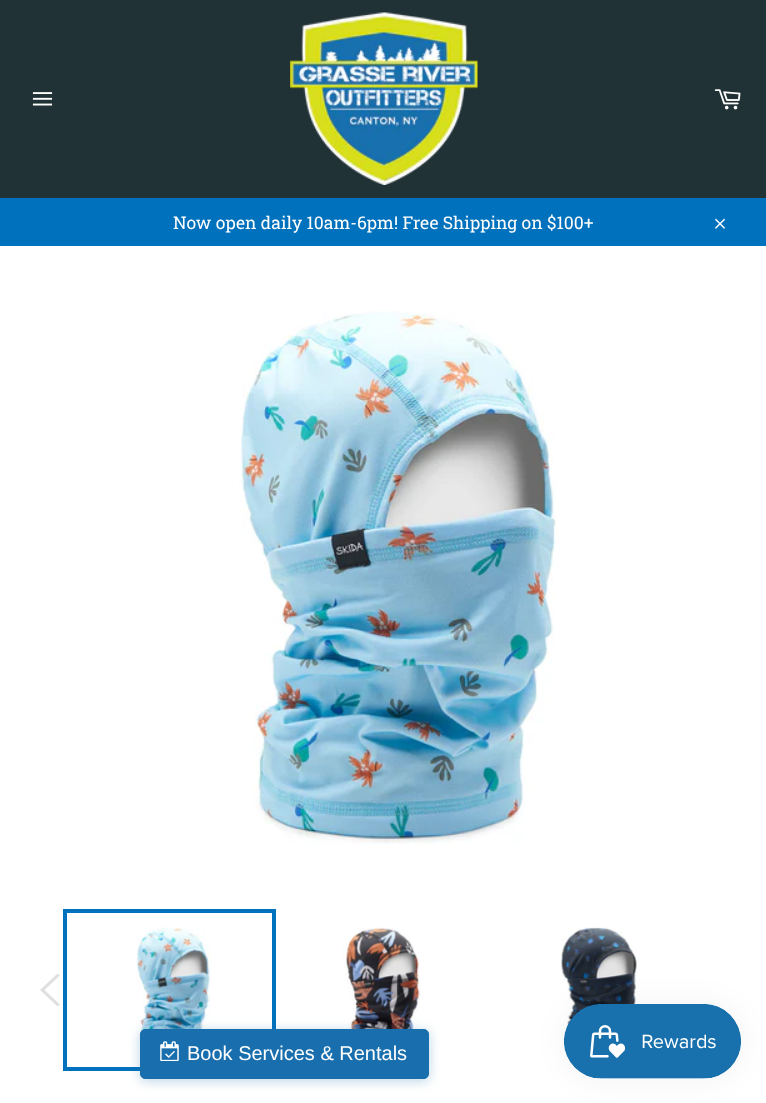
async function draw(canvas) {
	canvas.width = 766;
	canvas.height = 1103;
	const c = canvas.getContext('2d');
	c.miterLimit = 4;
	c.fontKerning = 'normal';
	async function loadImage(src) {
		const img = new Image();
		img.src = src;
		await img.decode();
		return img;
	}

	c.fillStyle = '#213236';
	c.fillRect(0, 0, 766, 1103);
	c.drawImage(await loadImage('img1.png'), 32, 92, 21, 14);
	c.drawImage(await loadImage('img2.png'), 290, 12, 188, 173);
	c.drawImage(await loadImage('img3.png'), 714, 89, 27, 21);
	c.fillStyle = '#0071bc';
	c.fillRect(0, 198, 766, 48);
	c.font = '17.5px Roboto Slab';
	c.fillStyle = '#fff';
	c.fillText('Now open daily 10am-6pm! Free Shipping on $100+', 173, 229);
	c.drawImage(await loadImage('img4.png'), 715, 218, 10, 11);
	c.fillRect(0, 246, 766, 857);
	c.drawImage(await loadImage('img5.png'), 239, 311, 317, 533);
	c.fillStyle = '#e0e0e0';
	c.beginPath();
	c.moveTo(60, 1004.5);
	c.lineTo(57.5, 1006.5);
	c.lineTo(40, 990);
	c.lineTo(57.5, 973.5);
	c.lineTo(60, 975.5);
	c.lineTo(44.5, 990);
	c.closePath();
	c.fill();
	c.drawImage(await loadImage('img6.png'), 136, 927, 75, 124);
	c.strokeStyle = '#0071bc';
	c.lineWidth = 4;
	c.strokeRect(65, 911, 209, 158);
	c.drawImage(await loadImage('img7.png'), 342, 927, 79, 102);
	c.drawImage(await loadImage('img8.png'), 561, 927, 76, 125);
	c.fillStyle = '#196fad4d';
	c.filter = 'blur(6px)';
	c.beginPath();
	c.roundRect(140, 1031, 289, 50, 5);
	c.fill();
	c.filter = 'none';
	c.fillStyle = '#196fad';
	c.beginPath();
	c.roundRect(140.5, 1029.5, 288, 49, 4.5);
	c.fill();
	c.strokeStyle = '#196fad';
	c.lineWidth = 1;
	c.stroke();
	c.drawImage(await loadImage('img9.png'), 160, 1041, 19, 20);
	c.font = '20px Liberation Sans';
	c.fillStyle = '#fff';
	c.fillText('Book Services & Rentals', 187, 1060);
	c.fillStyle = '#0000000d';
	c.filter = 'blur(15.5px)';
	c.beginPath();
	c.roundRect(564, 1004, 177, 75, 37.5);
	c.fill();
	c.filter = 'none';
	c.drawImage(await loadImage('img10.png'), 564, 1004, 177, 75);
}

draw(document.querySelector('canvas'));
